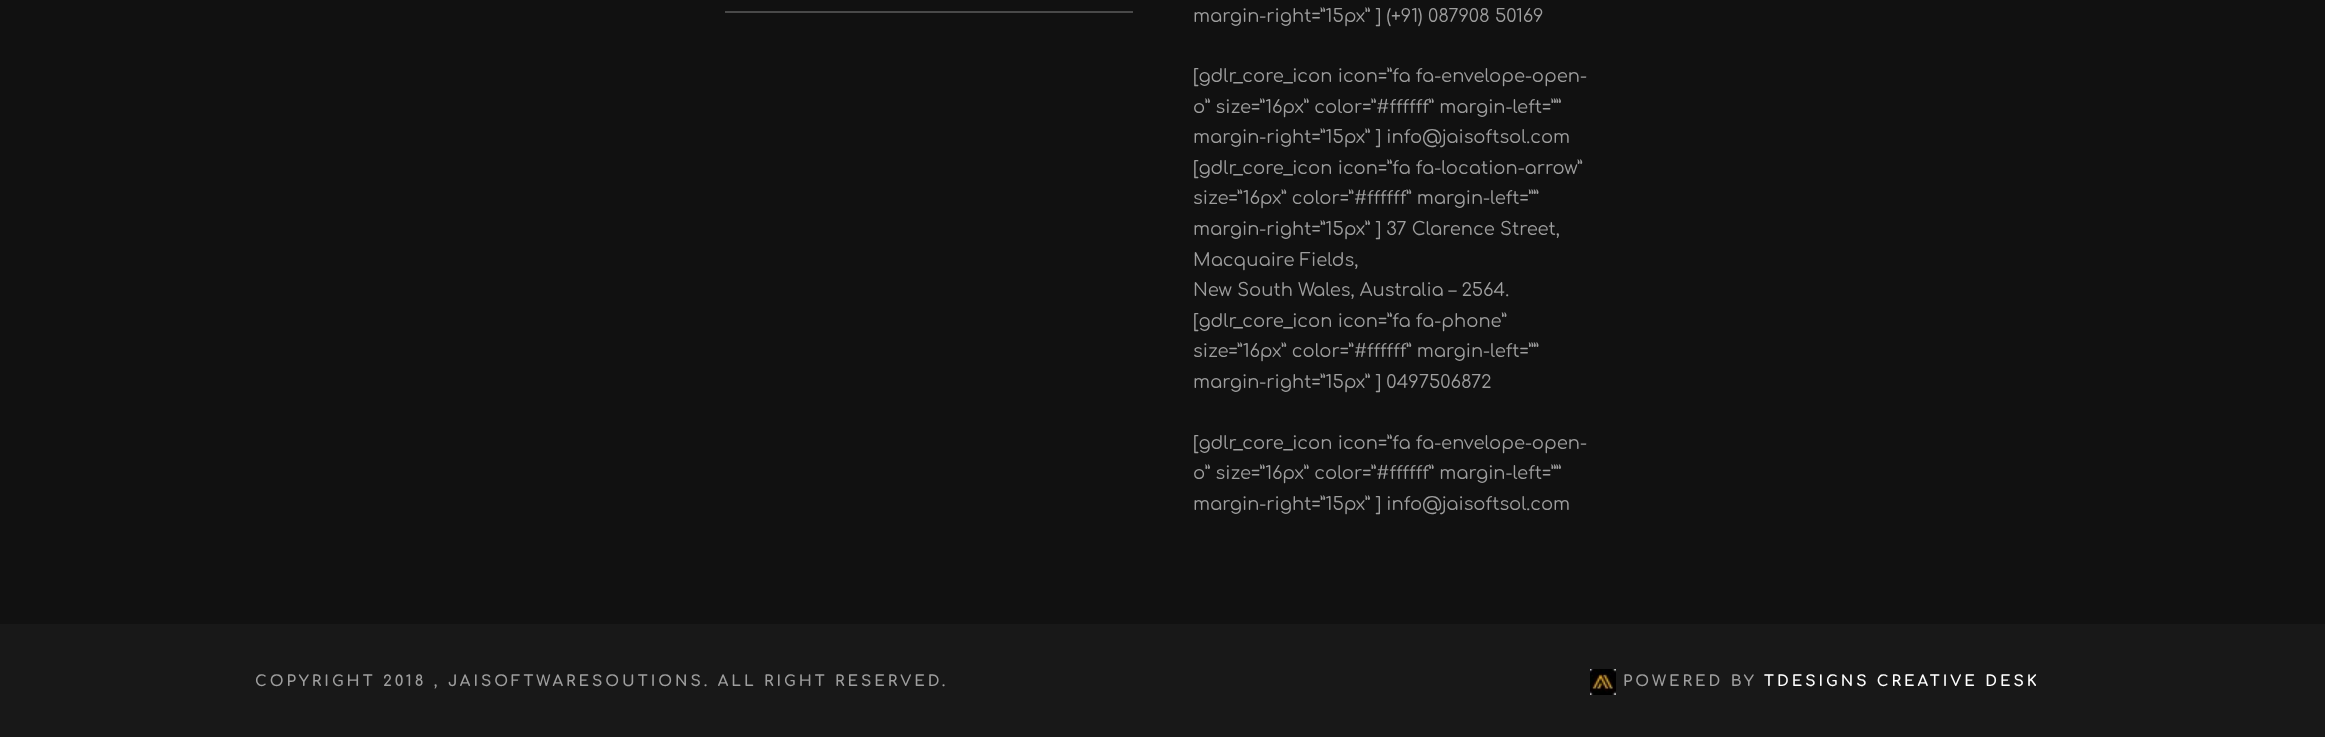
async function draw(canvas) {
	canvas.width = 2325;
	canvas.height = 737;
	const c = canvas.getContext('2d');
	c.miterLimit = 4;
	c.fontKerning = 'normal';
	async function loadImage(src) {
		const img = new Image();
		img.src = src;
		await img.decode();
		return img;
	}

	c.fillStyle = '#111';
	c.fillRect(0, 0, 2325, 737);
	c.fillStyle = '#494949';
	c.fillRect(725, 11, 408, 2);
	c.font = '18px Comfortaa';
	c.fillStyle = '#9e9e9e';
	for (const [text, x, y] of [
		['margin-right=”15px” ] (+91) 087908 50169', 1193, 22],
		['[gdlr_core_icon icon=”fa fa-envelope-open-', 1193, 82],
		['o” size=”16px” color=”#ffffff” margin-left=””', 1193, 113],
		['margin-right=”15px” ] info@jaisoftsol.com', 1193, 143],
		['[gdlr_core_icon icon=”fa fa-location-arrow”', 1193, 174],
		['size=”16px” color=”#ffffff” margin-left=””', 1193, 204],
		['margin-right=”15px” ] 37 Clarence Street,', 1193, 235],
		['Macquaire Fields,', 1193, 266],
		['New South Wales, Australia – 2564.', 1193, 296],
		['[gdlr_core_icon icon=”fa fa-phone”', 1193, 327],
		['size=”16px” color=”#ffffff” margin-left=””', 1193, 357],
		['margin-right=”15px” ] 0497506872', 1193, 388],
		['[gdlr_core_icon icon=”fa fa-envelope-open-', 1193, 449],
		['o” size=”16px” color=”#ffffff” margin-left=””', 1193, 479],
		['margin-right=”15px” ] info@jaisoftsol.com', 1193, 510],
	]) {
		c.fillText(text, x, y);
	}
	c.fillStyle = '#181818';
	c.fillRect(0, 624, 2325, 113);
	c.letterSpacing = '3px';
	c.font = 'bold 15px Comfortaa';
	c.fillStyle = '#9e9e9e';
	c.fillText('COPYRIGHT 2018 , JAISOFTWARESOUTIONS. ALL RIGHT RESERVED.', 255, 686);
	c.drawImage(await loadImage('img1.png'), 1590, 669, 26, 26);
	c.fillText('POWERED BY', 1623, 686);
	c.fillStyle = '#fff';
	c.fillText('TDESIGNS CREATIVE DESK', 1764, 686);
}

draw(document.querySelector('canvas'));
